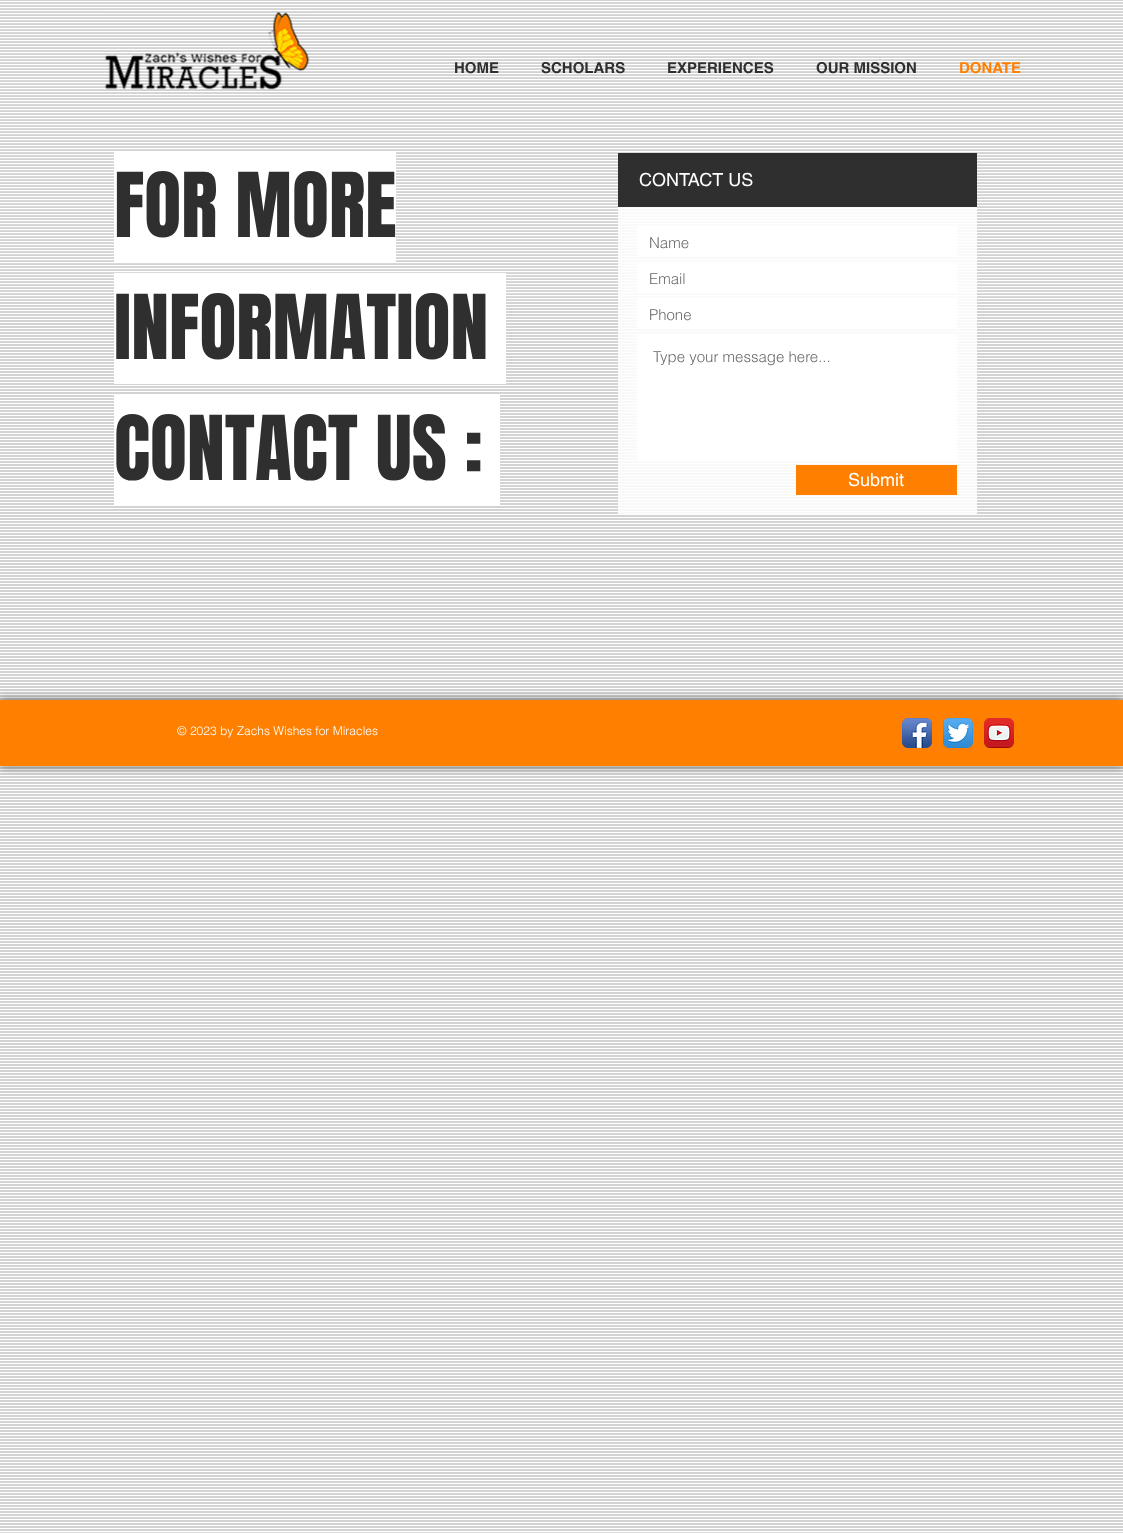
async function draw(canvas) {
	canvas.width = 1123;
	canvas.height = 1533;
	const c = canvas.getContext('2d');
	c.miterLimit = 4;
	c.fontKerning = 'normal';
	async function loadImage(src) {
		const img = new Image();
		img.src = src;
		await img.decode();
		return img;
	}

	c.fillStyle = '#fff';
	c.fillRect(0, 0, 1123, 1533);
	c.drawImage(await loadImage('img1.png'), 0, 0, 1123, 1533);
	c.drawImage(await loadImage('img2.png'), 105, 11, 205, 79);
	c.font = 'bold 15px helvetica';
	c.fillStyle = '#2f2f2f';
	for (const [text, x, y] of [
		['HOME', 454, 73],
		['SCHOLARS', 541, 73],
		['EXPERIENCES', 667, 73],
		['OUR MISSION', 816, 73],
	]) {
		c.fillText(text, x, y);
	}
	c.fillStyle = '#ff7f00';
	c.fillText('DONATE', 959, 73);
	c.fillStyle = '#fff';
	c.fillRect(114, 152, 282, 110);
	c.font = '76px Anton';
	c.fillStyle = '#2f2f2f';
	c.fillText('FOR MORE', 114, 237);
	c.fillStyle = '#fff';
	c.fillRect(114, 273, 392, 111);
	c.fillStyle = '#2f2f2f';
	c.fillText('INFORMATION', 114, 359);
	c.fillStyle = '#fff';
	c.fillRect(114, 395, 386, 110);
	c.fillStyle = '#2f2f2f';
	c.fillText('CONTACT US :', 114, 480);
	c.fillRect(618, 153, 359, 54);
	c.font = '18px helvetica';
	c.fillStyle = '#fff';
	c.fillText('CONTACT US', 639, 186);
	c.fillStyle = '#ffffffdb';
	c.fillRect(618, 207, 359, 307);
	c.fillStyle = '#fff';
	c.fillRect(637, 227, 320, 29);
	c.font = '300 15px helvetica';
	c.fillStyle = '#6b6969';
	c.fillText('Name', 649, 248);
	c.fillStyle = '#fff';
	c.fillRect(637, 263, 320, 29);
	c.fillStyle = '#6b6969';
	c.fillText('Email', 649, 284);
	c.fillStyle = '#fff';
	c.fillRect(637, 299, 320, 29);
	c.fillStyle = '#6b6969';
	c.fillText('Phone', 649, 320);
	c.fillStyle = '#fff';
	c.fillRect(637, 335, 320, 125);
	c.fillStyle = '#6b6969';
	c.fillText('Type your message here...', 653, 362);
	c.fillStyle = '#ff7f00';
	c.fillRect(796, 465, 161, 30);
	c.font = '18px helvetica';
	c.fillStyle = '#fff';
	c.fillText('Submit', 848, 486);
	c.fillStyle = '#00000080';
	c.filter = 'blur(5px)';
	c.beginPath();
	c.rect(-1, 699, 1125, 68);
	c.fill();
	c.filter = 'none';
	c.fillStyle = '#ff7f00';
	c.fillRect(0, 700, 1123, 66);
	c.font = '300 12px helvetica';
	c.fillStyle = '#fff';
	c.fillText('© 2023 by Zachs Wishes for Miracles', 177, 735);
	c.drawImage(await loadImage('img3.png'), 902, 718, 30, 30);
	c.drawImage(await loadImage('img4.png'), 943, 718, 30, 30);
	c.drawImage(await loadImage('img5.png'), 984, 718, 30, 30);
}

draw(document.querySelector('canvas'));
